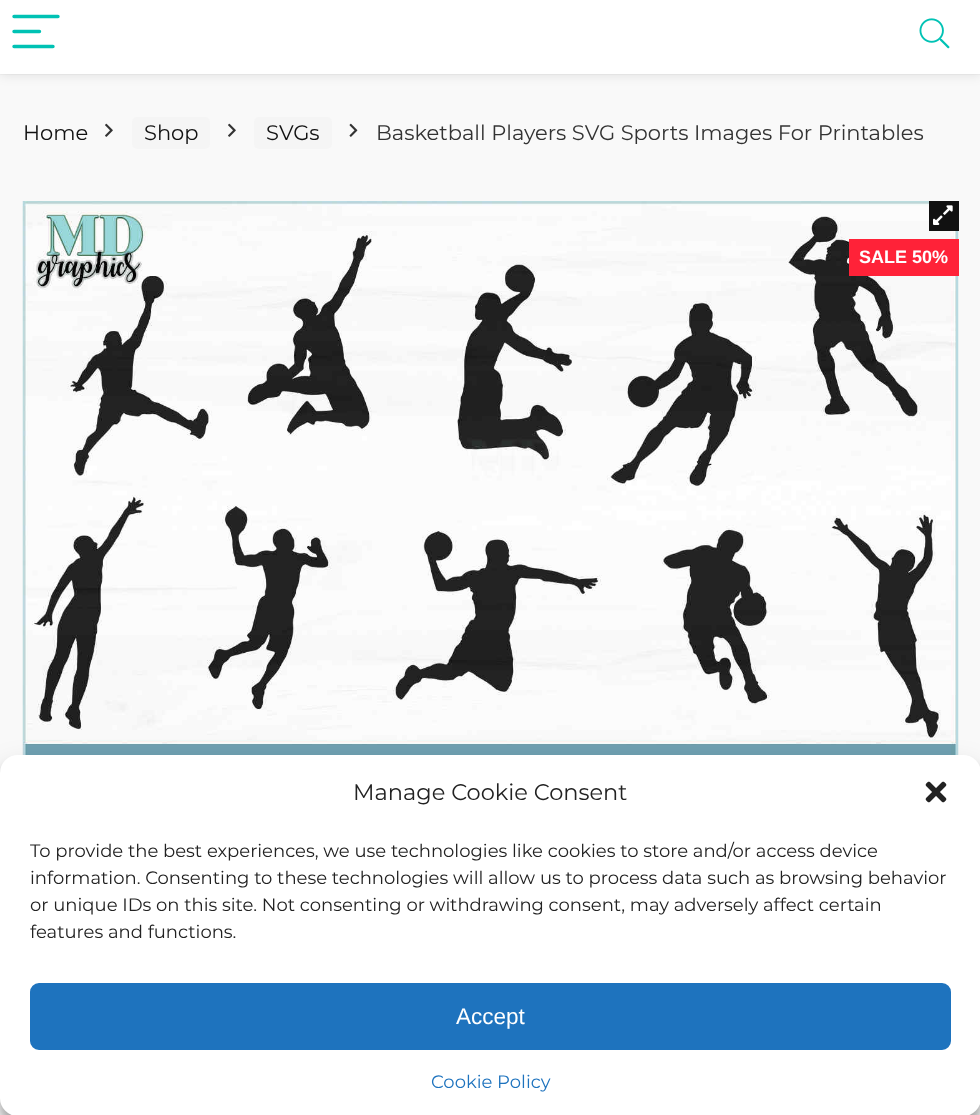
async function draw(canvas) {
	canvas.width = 980;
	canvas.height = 1115;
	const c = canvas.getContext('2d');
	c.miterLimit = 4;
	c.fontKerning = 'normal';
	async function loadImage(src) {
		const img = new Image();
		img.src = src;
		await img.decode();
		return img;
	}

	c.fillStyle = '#f9f9f9';
	c.fillRect(0, 0, 980, 1115);
	c.strokeStyle = '#f2f2f2';
	c.lineWidth = 2;
	c.strokeRect(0, 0, 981, 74);
	c.fillStyle = '#0000001a';
	c.filter = 'blur(6px)';
	c.beginPath();
	c.rect(0, 2, 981, 73);
	c.fill();
	c.filter = 'none';
	c.fillStyle = '#fff';
	c.fillRect(0, 0, 980, 74);
	c.beginPath();
	c.moveTo(14, 16.5);
	c.lineTo(58, 16.5);
	c.moveTo(14, 31.5);
	c.lineTo(39.5, 31.5);
	c.moveTo(14, 46.5);
	c.lineTo(53, 46.5);
	c.strokeStyle = '#00c2b4';
	c.lineWidth = 3.4;
	c.lineCap = 'round';
	c.stroke();
	c.drawImage(await loadImage('img1.png'), 919, 18, 31, 31);
	c.fillRect(0, 1098, 980, 17);
	c.font = '100 21px Montserrat';
	c.fillStyle = '#111';
	c.fillText('Home', 23, 140);
	c.drawImage(await loadImage('img2.png'), 105, 123, 8, 14);
	c.fillStyle = '#f5f5f5';
	c.beginPath();
	c.roundRect(132, 117, 78, 32, 5);
	c.fill();
	c.fillStyle = '#111';
	c.fillText('Shop', 144, 140);
	c.drawImage(await loadImage('img2.png'), 228, 123, 8, 14);
	c.fillStyle = '#f5f5f5';
	c.beginPath();
	c.roundRect(254, 117, 78, 32, 5);
	c.fill();
	c.fillStyle = '#111';
	c.fillText('SVGs', 266, 140);
	c.drawImage(await loadImage('img3.png'), 349, 123, 9, 14);
	c.fillStyle = '#333';
	c.fillText('Basketball Players SVG Sports Images For Printables', 376, 140);
	c.drawImage(await loadImage('img4.png'), 22, 201, 937, 554);
	c.fillStyle = '#111';
	c.fillRect(929, 201, 30, 30);
	c.drawImage(await loadImage('img5.png'), 933, 205, 20, 20);
	c.fillStyle = '#ff2238';
	c.fillRect(849, 239, 110, 37);
	c.font = 'bold 18px Liberation Sans';
	c.fillStyle = '#fff';
	c.fillText('SALE 50%', 859, 263);
	c.fillStyle = '#0000003b';
	c.filter = 'blur(4.5px)';
	c.beginPath();
	c.roundRect(0, 764, 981, 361, 18);
	c.fill();
	c.filter = 'none';
	c.fillStyle = '#00000030';
	c.filter = 'blur(15px)';
	c.beginPath();
	c.roundRect(0, 770, 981, 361, 18);
	c.fill();
	c.filter = 'none';
	c.fillStyle = '#fff';
	c.beginPath();
	c.roundRect(0, 755, 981, 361, 18);
	c.fill();
	c.font = '100 22.5px Montserrat';
	c.fillStyle = '#222';
	c.fillText('Manage Cookie Consent', 353, 800);
	c.drawImage(await loadImage('img6.png'), 925, 781, 22, 22);
	c.font = '100 18px Montserrat';
	for (const [text, x, y] of [
		['To provide the best experiences, we use technologies like cookies to store and/or access device', 30, 857],
		['information. Consenting to these technologies will allow us to process data such as browsing behavior', 30, 884],
		['or unique IDs on this site. Not consenting or withdrawing consent, may adversely affect certain', 30, 911],
		['features and functions.', 30, 938],
	]) {
		c.fillText(text, x, y);
	}
	c.fillStyle = '#1e73be';
	c.beginPath();
	c.roundRect(31, 984, 919, 65, 8);
	c.fill();
	c.strokeStyle = '#1e73be';
	c.lineWidth = 2;
	c.stroke();
	c.font = '22.5px Liberation Sans';
	c.fillStyle = '#fff';
	c.fillText('Accept', 456, 1024);
	c.font = '100 18px Montserrat';
	c.fillStyle = '#1e73be';
	c.fillText('Cookie Policy', 431, 1088);
}

draw(document.querySelector('canvas'));
